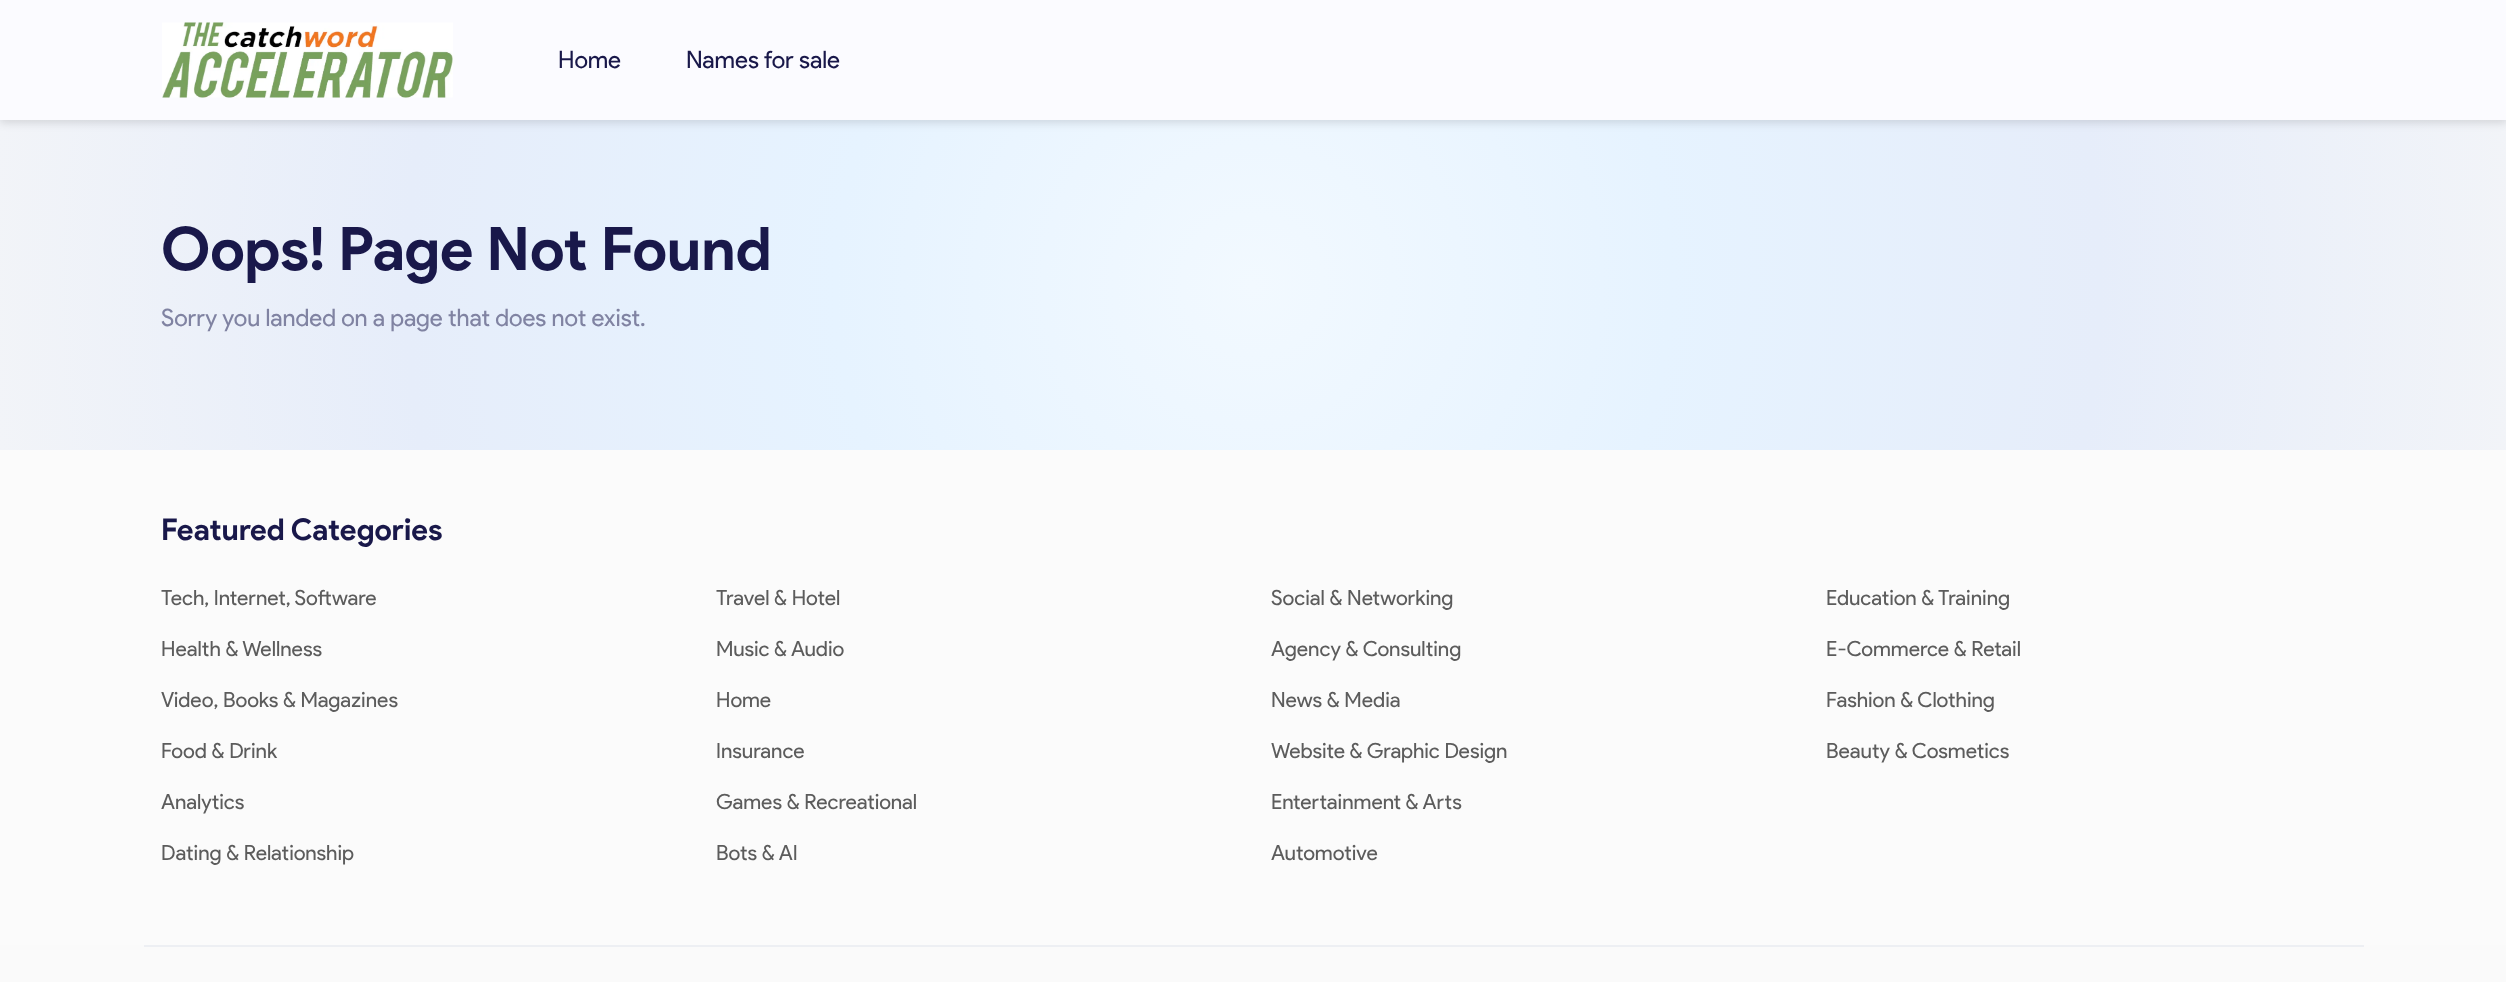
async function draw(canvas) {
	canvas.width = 2506;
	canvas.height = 982;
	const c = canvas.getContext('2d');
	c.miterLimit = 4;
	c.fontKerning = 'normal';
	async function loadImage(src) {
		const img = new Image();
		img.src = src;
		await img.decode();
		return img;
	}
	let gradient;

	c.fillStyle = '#fff';
	c.fillRect(0, 0, 2506, 982);
	gradient = c.createRadialGradient(1253, 285, 0, 1253, 285, 1264);
	gradient.addColorStop(0, '#f2f9ff');
	gradient.addColorStop(0.33, '#e6f3ff');
	gradient.addColorStop(0.67, '#e6edfa');
	gradient.addColorStop(1, '#f2f4f8');
	c.fillStyle = gradient;
	c.fillRect(0, 120, 2506, 330);
	c.fillStyle = '#0000001f';
	c.filter = 'blur(4.5px)';
	c.beginPath();
	c.rect(0, 3, 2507, 120);
	c.fill();
	c.filter = 'none';
	c.fillStyle = '#fbfbff';
	c.fillRect(0, 0, 2506, 120);
	c.drawImage(await loadImage('img1.png'), 162, 22, 291, 76);
	c.font = '24px Product Sans';
	c.fillStyle = '#19184a';
	c.fillText('Home', 558, 68);
	c.fillText('Names for sale', 686, 68);
	c.font = 'bold 60px Product Sans';
	c.fillText('Oops! Page Not Found', 161, 270);
	c.font = '24px Product Sans';
	c.fillStyle = '#8083a2';
	c.fillText('Sorry you landed on a page that does not exist.', 161, 326);
	c.fillStyle = '#fbfbfb';
	c.fillRect(0, 450, 2506, 495);
	c.font = 'bold 30px Product Sans';
	c.fillStyle = '#19184a';
	c.fillText('Featured Categories', 161, 540);
	c.font = '21px Product Sans';
	c.fillStyle = '#5c5c5c';
	for (const [text, x, y] of [
		['Tech, Internet, Software', 161, 605],
		['Health & Wellness', 161, 656],
		['Travel & Hotel', 716, 605],
		['Music & Audio', 716, 656],
		['Social & Networking', 1271, 605],
		['Agency & Consulting', 1271, 656],
		['Education & Training', 1826, 605],
		['E-Commerce & Retail', 1826, 656],
		['Video, Books & Magazines', 161, 707],
		['Food & Drink', 161, 758],
		['Home', 716, 707],
		['Insurance', 716, 758],
		['News & Media', 1271, 707],
		['Website & Graphic Design', 1271, 758],
		['Fashion & Clothing', 1826, 707],
		['Beauty & Cosmetics', 1826, 758],
		['Analytics', 161, 809],
		['Dating & Relationship', 161, 860],
		['Games & Recreational', 716, 809],
		['Bots & AI', 716, 860],
		['Entertainment & Arts', 1271, 809],
		['Automotive', 1271, 860],
	]) {
		c.fillText(text, x, y);
	}
	c.fillStyle = '#fafafa';
	c.fillRect(0, 945, 2506, 37);
	c.fillStyle = '#edeff3';
	c.fillRect(144, 945, 2220, 2);
}

draw(document.querySelector('canvas'));
